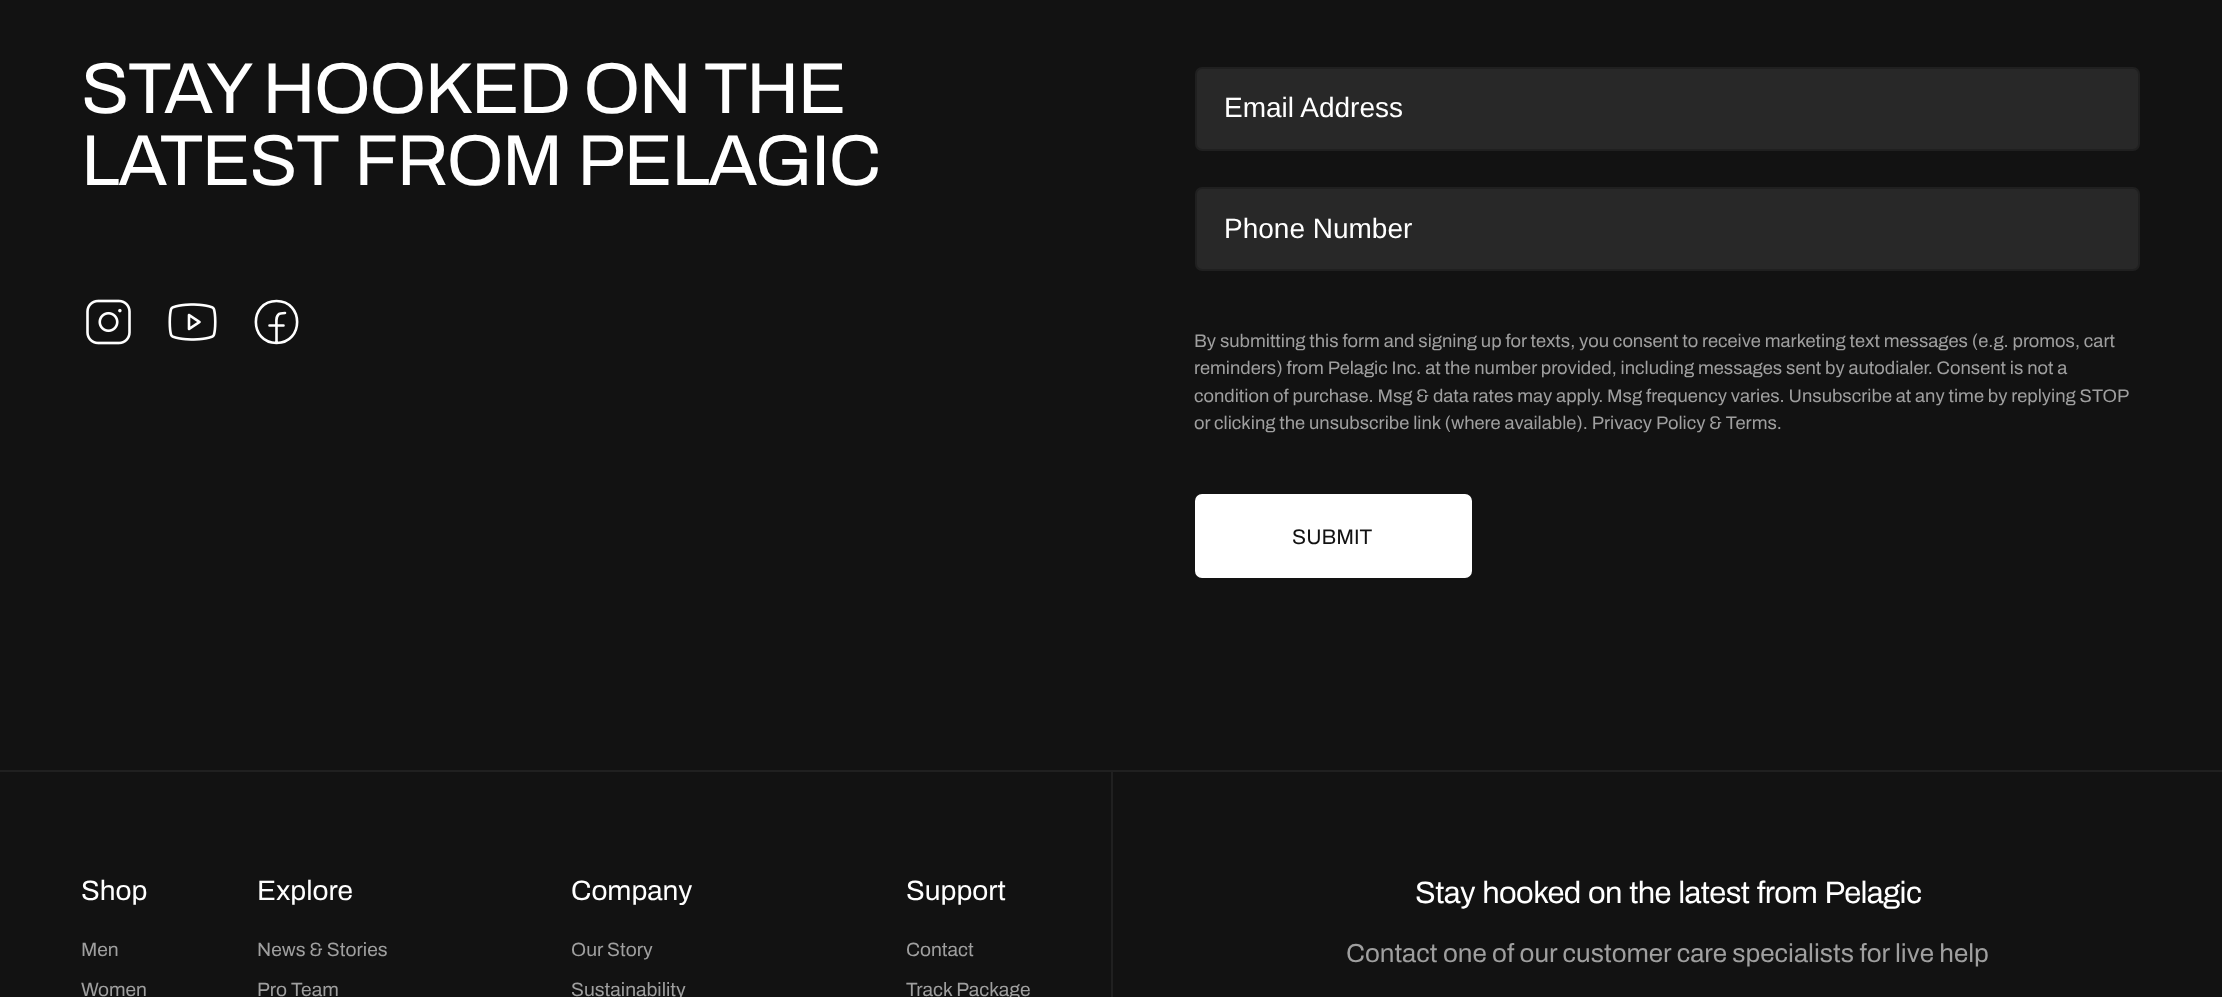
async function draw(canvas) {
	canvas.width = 2222;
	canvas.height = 997;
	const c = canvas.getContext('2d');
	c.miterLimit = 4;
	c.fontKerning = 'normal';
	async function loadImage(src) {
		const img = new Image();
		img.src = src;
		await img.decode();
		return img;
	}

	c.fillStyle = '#121212';
	c.fillRect(0, 0, 2222, 997);
	c.letterSpacing = '-1.4px';
	c.font = '72px Archivo';
	c.fillStyle = '#fff';
	c.fillText('STAY HOOKED ON THE', 81, 113);
	c.wordSpacing = '2px';
	c.fillText('LATEST FROM PELAGIC', 81, 185);
	c.drawImage(await loadImage('img1.png'), 86, 299, 45, 46);
	c.drawImage(await loadImage('img2.png'), 168, 303, 49, 38);
	c.beginPath();
	c.moveTo(276.5, 343);
	c.bezierCurveTo(304, 343, 304, 301, 276.5, 301);
	c.bezierCurveTo(249, 301, 249, 343, 276.5, 343);
	c.closePath();
	c.moveTo(285, 313);
	c.lineTo(280.5, 313.5);
	c.bezierCurveTo(275, 314.5, 276.5, 322.5, 276.5, 326.5);
	c.lineTo(276.5, 343);
	c.moveTo(269.5, 325.5);
	c.lineTo(283.5, 325.5);
	c.strokeStyle = '#fff';
	c.lineWidth = 2.6;
	c.lineCap = 'round';
	c.lineJoin = 'round';
	c.stroke();
	c.fillStyle = '#282828';
	c.beginPath();
	c.roundRect(1196, 68, 943, 82, 6);
	c.fill();
	c.strokeStyle = '#202020';
	c.lineWidth = 2;
	c.lineJoin = 'miter';
	c.stroke();
	c.letterSpacing = '0px';
	c.wordSpacing = '0px';
	c.font = '28px Liberation Sans';
	c.fillStyle = '#fff';
	c.fillText('Email Address', 1224, 117);
	c.fillStyle = '#282828';
	c.beginPath();
	c.roundRect(1196, 188, 943, 82, 6);
	c.fill();
	c.stroke();
	c.fillStyle = '#fff';
	c.fillText('Phone Number', 1224, 238);
	c.font = '18.38px Archivo';
	c.fillStyle = '#9f9f9f';
	for (const [text, x, y] of [
		['By submitting this form and signing up for texts, you consent to receive marketing text messages (e.g. promos, cart', 1194, 347],
		['reminders) from Pelagic Inc. at the number provided, including messages sent by autodialer. Consent is not a', 1194, 374],
		['condition of purchase. Msg & data rates may apply. Msg frequency varies. Unsubscribe at any time by replying STOP', 1194, 402],
		['or clicking the unsubscribe link (where available). Privacy Policy & Terms.', 1194, 429],
	]) {
		c.fillText(text, x, y);
	}
	c.fillStyle = '#fff';
	c.beginPath();
	c.roundRect(1196, 495, 275, 82, 6);
	c.fill();
	c.strokeStyle = '#fff';
	c.stroke();
	c.font = '21px Archivo';
	c.fillStyle = '#121212';
	c.fillText('SUBMIT', 1292, 544);
	c.fillStyle = '#202020';
	c.fillRect(0, 770, 2222, 2);
	c.font = '28px Archivo';
	c.fillStyle = '#fff';
	c.fillText('Shop', 81, 900);
	c.font = '19.25px Archivo';
	c.fillStyle = '#9f9f9f';
	c.fillText('Men', 81, 956);
	c.fillText('Women', 81, 996);
	c.font = '28px Archivo';
	c.fillStyle = '#fff';
	c.fillText('Explore', 257, 900);
	c.font = '19.25px Archivo';
	c.fillStyle = '#9f9f9f';
	c.fillText('News & Stories', 257, 956);
	c.fillText('Pro Team', 257, 996);
	c.font = '28px Archivo';
	c.fillStyle = '#fff';
	c.fillText('Company', 571, 900);
	c.font = '19.25px Archivo';
	c.fillStyle = '#9f9f9f';
	c.fillText('Our Story', 571, 956);
	c.fillText('Sustainability', 571, 996);
	c.font = '28px Archivo';
	c.fillStyle = '#fff';
	c.fillText('Support', 906, 900);
	c.font = '19.25px Archivo';
	c.fillStyle = '#9f9f9f';
	c.fillText('Contact', 906, 956);
	c.fillText('Track Package', 906, 996);
	c.fillStyle = '#202020';
	c.fillRect(1111, 770, 2, 227);
	c.letterSpacing = '-0.6px';
	c.wordSpacing = '1.5px';
	c.font = '30.9px Archivo';
	c.fillStyle = '#fff';
	c.fillText('Stay hooked on the latest from Pelagic', 1415, 903);
	c.letterSpacing = '0px';
	c.wordSpacing = '0px';
	c.font = '26px Archivo';
	c.fillStyle = '#9f9f9f';
	c.fillText('Contact one of our customer care specialists for live help', 1346, 962);
}

draw(document.querySelector('canvas'));
